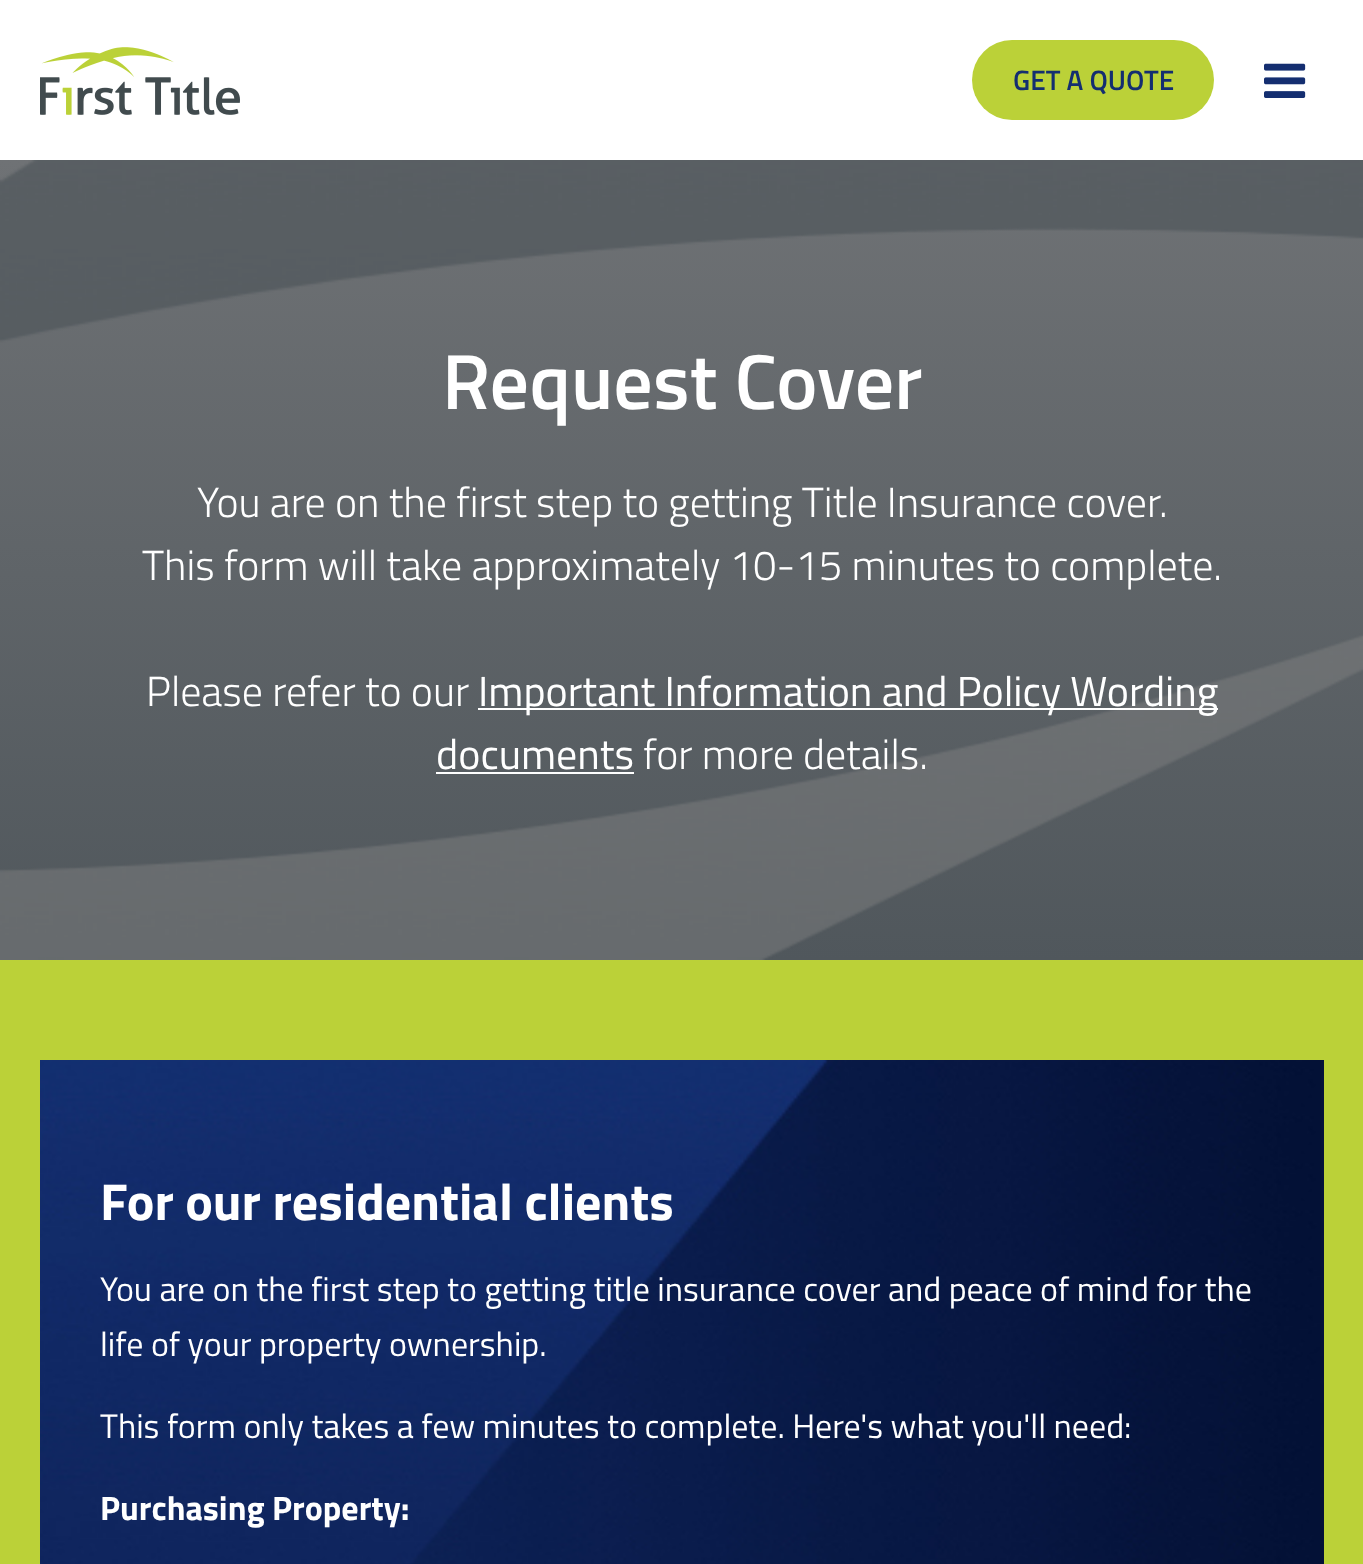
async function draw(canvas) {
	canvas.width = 1363;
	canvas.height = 1564;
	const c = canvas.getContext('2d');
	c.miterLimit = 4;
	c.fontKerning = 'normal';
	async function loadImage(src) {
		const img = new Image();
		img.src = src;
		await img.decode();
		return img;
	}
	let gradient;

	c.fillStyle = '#fff';
	c.fillRect(0, 0, 1363, 1564);
	c.drawImage(await loadImage('img1.png'), 40, 47, 200, 68);
	c.fillStyle = '#bbd138';
	c.beginPath();
	c.roundRect(972, 40, 242, 80, 40);
	c.fill();
	c.font = '600 28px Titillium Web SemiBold';
	c.fillStyle = '#142e70';
	c.fillText('GET A QUOTE', 1013, 90);
	c.drawImage(await loadImage('img2.png'), 1264, 63, 42, 35);
	gradient = c.createLinearGradient(682, 160, 682, 960);
	gradient.addColorStop(0, '#6f7275');
	gradient.addColorStop(1, '#50575c');
	c.fillStyle = gradient;
	c.fillRect(0, 160, 1363, 800);
	c.drawImage(await loadImage('img3.png'), 0, 160, 1363, 800);
	c.font = '600 78px Titillium Web SemiBold';
	c.fillStyle = '#fff';
	c.fillText('Request Cover', 442, 409);
	c.font = '300 42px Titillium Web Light';
	for (const [text, x, y] of [
		['You are on the first step to getting Title Insurance cover.', 197, 517],
		['This form will take approximately 10-15 minutes to complete.', 142, 580],
		['Please refer to our', 146, 706],
	]) {
		c.fillText(text, x, y);
	}
	c.fillRect(478, 708, 740, 2);
	c.font = '42px Titillium Web';
	c.fillText('Important Information and Policy Wording', 478, 706);
	c.fillText('documents', 436, 769);
	c.fillRect(436, 772, 198, 2);
	c.font = '300 42px Titillium Web Light';
	c.fillText('for more details.', 643, 769);
	c.fillStyle = '#bbd138';
	c.fillRect(0, 960, 1363, 604);
	c.drawImage(await loadImage('img4.png'), 40, 1060, 1284, 504);
	c.font = 'bold 52px Titillium Web';
	c.fillStyle = '#fff';
	c.fillText('For our residential clients', 100, 1220);
	c.font = '34px Titillium Web';
	for (const [text, x, y] of [
		['You are on the first step to getting title insurance cover and peace of mind for the', 100, 1301],
		['life of your property ownership.', 100, 1356],
		['This form only takes a few minutes to complete. Here\'s what you\'ll need:', 100, 1438],
	]) {
		c.fillText(text, x, y);
	}
	c.font = 'bold 34px Titillium Web';
	c.fillText('Purchasing Property:', 100, 1520);
}

draw(document.querySelector('canvas'));
